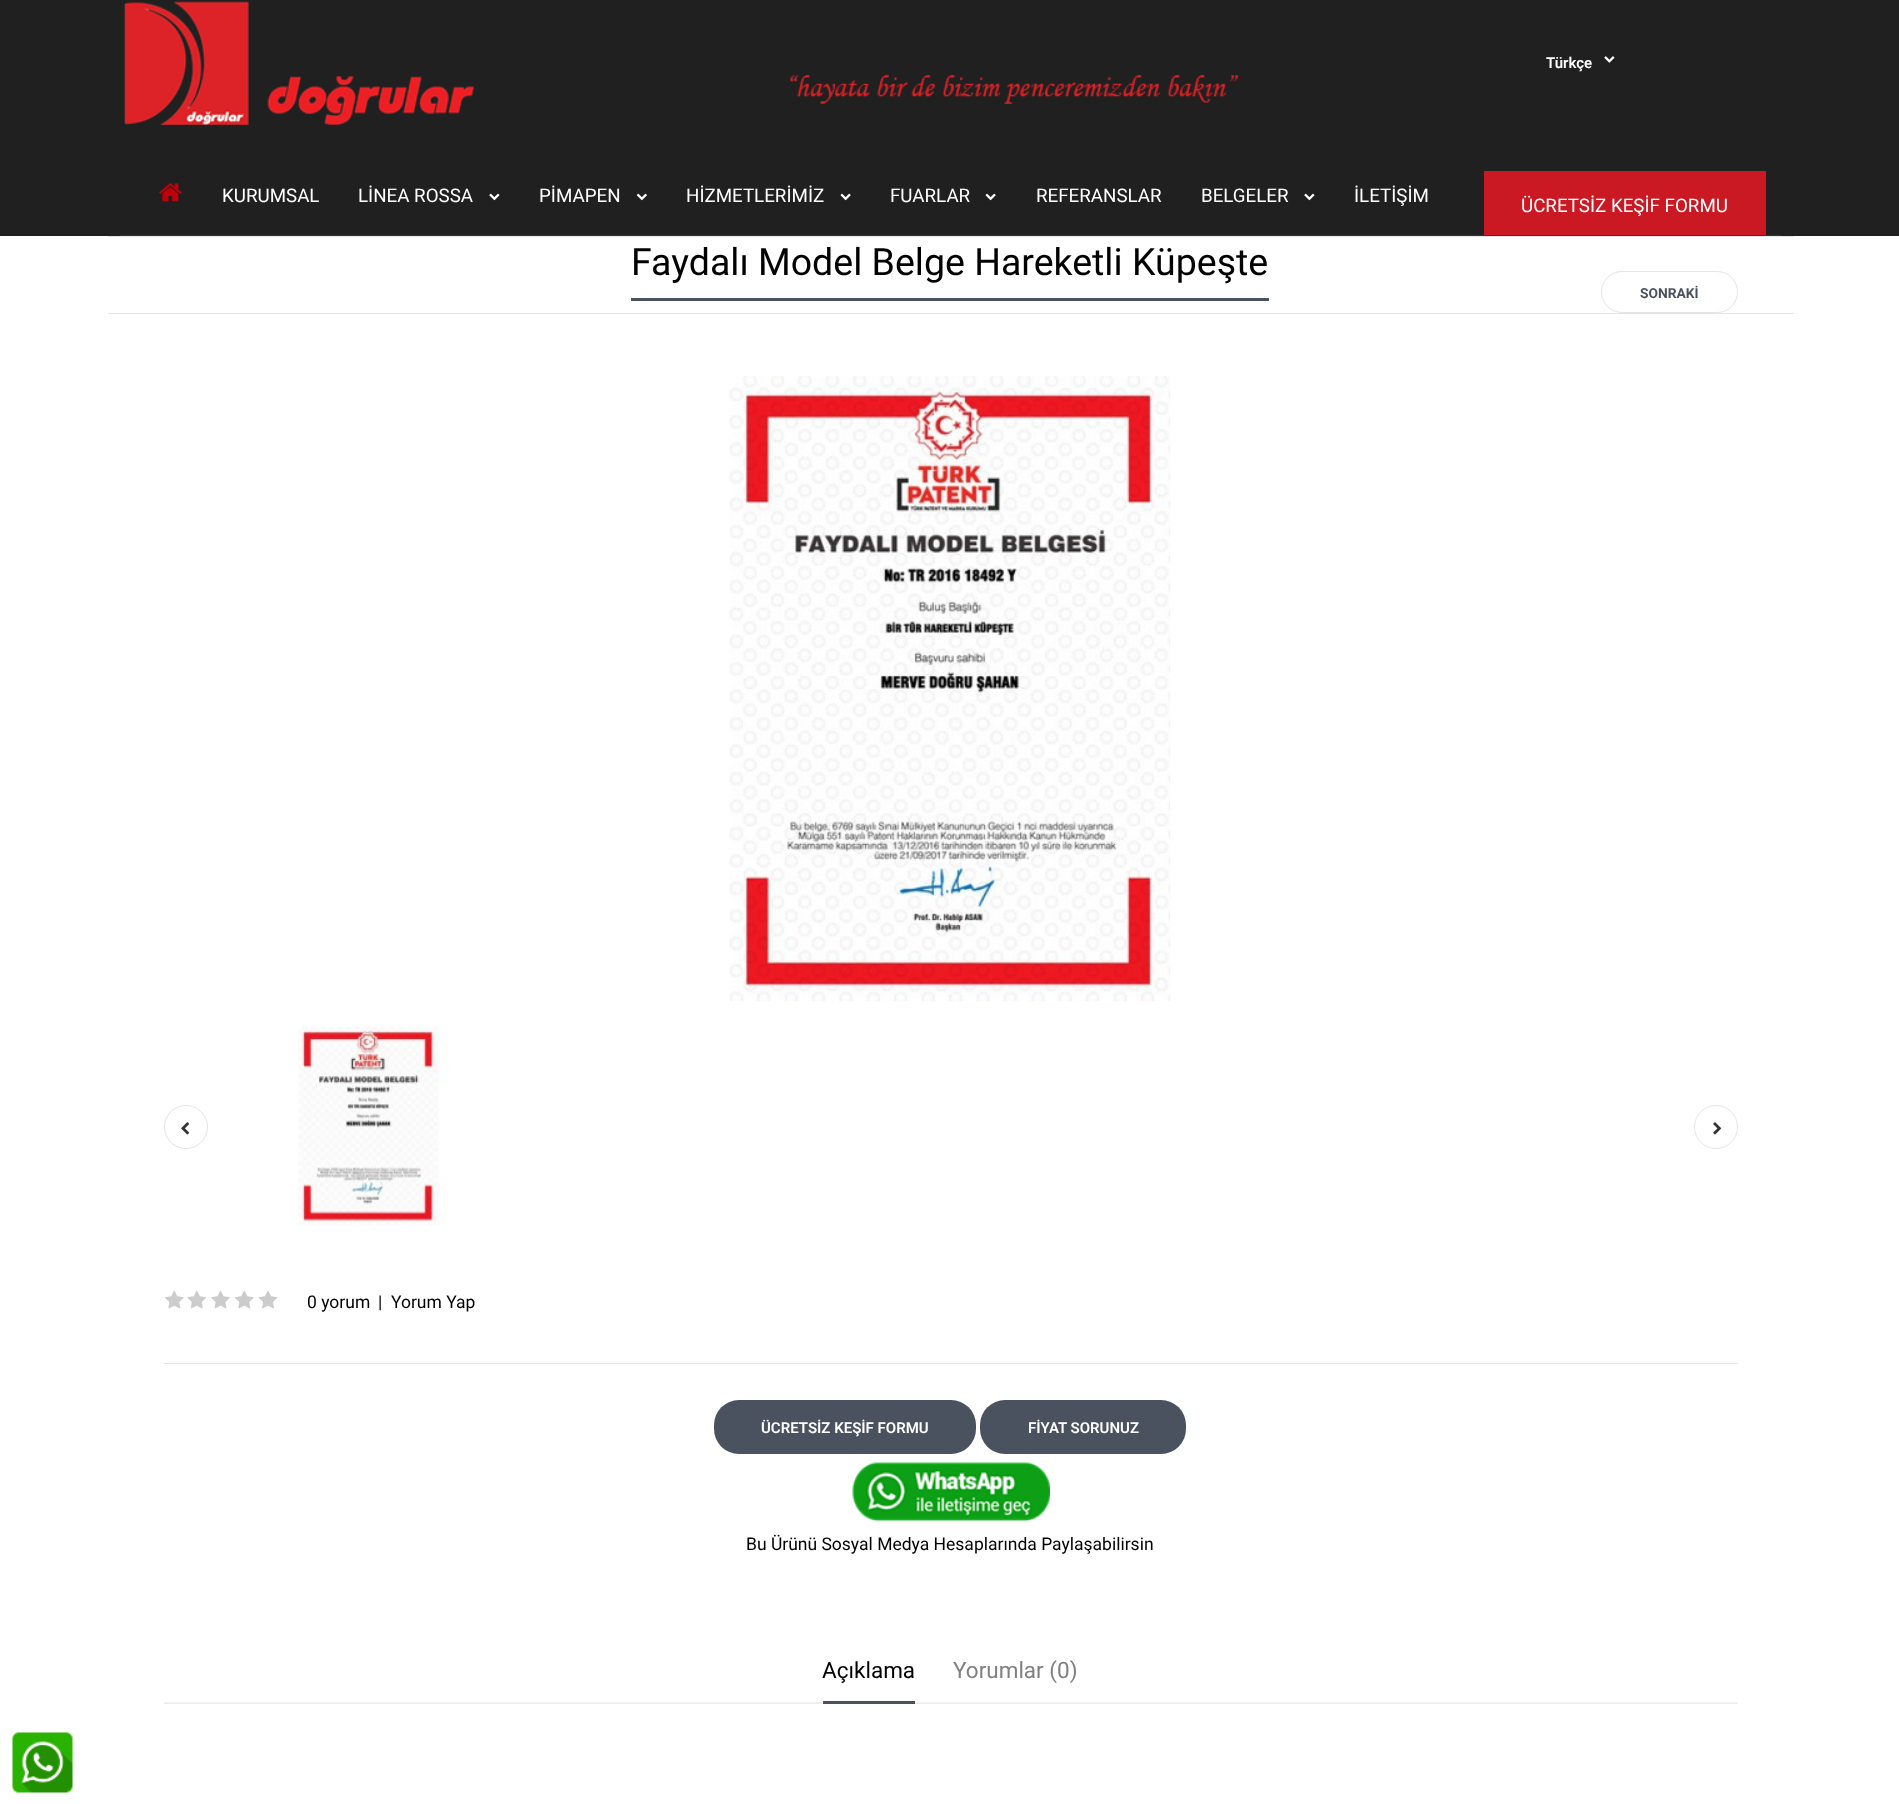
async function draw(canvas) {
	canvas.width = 1899;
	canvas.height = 1804;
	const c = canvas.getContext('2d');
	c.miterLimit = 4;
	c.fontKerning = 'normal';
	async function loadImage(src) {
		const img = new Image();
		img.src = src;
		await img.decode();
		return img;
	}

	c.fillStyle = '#fff';
	c.fillRect(0, 0, 1899, 1804);
	c.fillStyle = '#202020';
	c.fillRect(0, 0, 1899, 236);
	c.drawImage(await loadImage('img1.png'), 123, 1, 351, 124);
	c.font = '600 15px Roboto';
	c.fillStyle = '#fff';
	c.fillText('Türkçe', 1546, 68);
	c.drawImage(await loadImage('img2.png'), 1604, 56, 11, 7);
	c.drawImage(await loadImage('img3.png'), 789, 74, 450, 30);
	c.fillStyle = '#363636';
	c.fillRect(120, 235, 1661, 1);
	c.drawImage(await loadImage('img4.png'), 159, 183, 23, 19);
	c.font = '18.75px Roboto';
	c.fillStyle = '#fff';
	c.fillText('KURUMSAL', 222, 202);
	c.fillText('LİNEA ROSSA', 358, 202);
	c.drawImage(await loadImage('img5.png'), 489, 193, 11, 8);
	c.fillText('PİMAPEN', 539, 202);
	c.drawImage(await loadImage('img6.png'), 636, 193, 11, 8);
	c.fillText('HİZMETLERİMİZ', 686, 202);
	c.drawImage(await loadImage('img7.png'), 840, 193, 11, 8);
	c.fillText('FUARLAR', 890, 202);
	c.drawImage(await loadImage('img7.png'), 985, 193, 11, 8);
	c.fillText('REFERANSLAR', 1036, 202);
	c.fillText('BELGELER', 1201, 202);
	c.drawImage(await loadImage('img5.png'), 1304, 193, 11, 8);
	c.fillText('İLETİŞİM', 1354, 202);
	c.fillStyle = '#ca1923';
	c.fillRect(1484, 171, 282, 64);
	c.fillStyle = '#fff';
	c.fillText('ÜCRETSİZ KEŞİF FORMU', 1521, 212);
	c.drawImage(await loadImage('img8.png'), 12, 1732, 61, 61);
	for (const [x, y, w, h, color] of [
		[108, 236, 1686, 1, '#e5e5e5'],
		[108, 313, 1686, 1, '#e5e5e5'],
		[631, 298, 638, 3, '#4a525f'],
	]) {
		c.fillStyle = color;
		c.fillRect(x, y, w, h);
	}
	c.font = '37.5px Roboto';
	c.fillStyle = '#000';
	c.fillText('Faydalı Model Belge Hareketli Küpeşte', 631, 275);
	c.beginPath();
	c.roundRect(1601.5, 271.5, 136, 41, 20.5);
	c.strokeStyle = '#e5e5e5';
	c.stroke();
	c.font = 'bold 13.75px Roboto';
	c.fillStyle = '#4a525f';
	c.fillText('SONRAKİ', 1640, 298);
	c.drawImage(await loadImage('img9.png'), 729, 376, 442, 626);
	c.drawImage(await loadImage('img10.png'), 298, 1026, 151, 200);
	c.beginPath();
	c.arc(186, 1127, 21.5, 0, 2 * Math.PI);
	c.stroke();
	c.drawImage(await loadImage('img11.png'), 181, 1122, 9, 13);
	c.beginPath();
	c.arc(1716, 1127, 21.5, 0, 2 * Math.PI);
	c.stroke();
	c.drawImage(await loadImage('img12.png'), 1713, 1122, 9, 13);
	c.fillStyle = '#e5e5e5';
	c.fillRect(164, 1363, 1574, 1);
	c.drawImage(await loadImage('img13.png'), 165, 1290, 19, 19);
	c.drawImage(await loadImage('img14.png'), 187, 1290, 19, 19);
	c.drawImage(await loadImage('img15.png'), 211, 1290, 19, 19);
	c.drawImage(await loadImage('img13.png'), 235, 1290, 19, 19);
	c.drawImage(await loadImage('img16.png'), 258, 1290, 20, 19);
	c.font = '17.5px Roboto';
	c.fillStyle = '#000';
	for (const [text, x, y] of [
		['0 yorum', 307, 1308],
		['|', 378, 1308],
		['Yorum Yap', 391, 1308],
	]) {
		c.fillText(text, x, y);
	}
	c.fillStyle = '#4a525f';
	c.beginPath();
	c.roundRect(714, 1400, 262, 54, 25);
	c.fill();
	c.font = '600 15px Roboto';
	c.fillStyle = '#fff';
	c.fillText('ÜCRETSİZ KEŞİF FORMU', 761, 1433);
	c.fillStyle = '#4a525f';
	c.beginPath();
	c.roundRect(980, 1400, 206, 54, 25);
	c.fill();
	c.fillStyle = '#fff';
	c.fillText('FİYAT SORUNUZ', 1028, 1433);
	c.drawImage(await loadImage('img17.png'), 852, 1462, 198, 60);
	c.font = '17.5px Roboto';
	c.fillStyle = '#000';
	c.fillText('Bu Ürünü Sosyal Medya Hesaplarında Paylaşabilirsin', 746, 1550);
	c.font = '22.5px Roboto';
	c.fillText('Açıklama', 822, 1678);
	c.drawImage(await loadImage('img18.png'), 164, 1702, 1574, 2);
	c.fillStyle = '#4a525f';
	c.fillRect(823, 1701, 92, 3);
	c.fillStyle = '#808080';
	c.fillText('Yorumlar (0)', 953, 1678);
}

draw(document.querySelector('canvas'));
